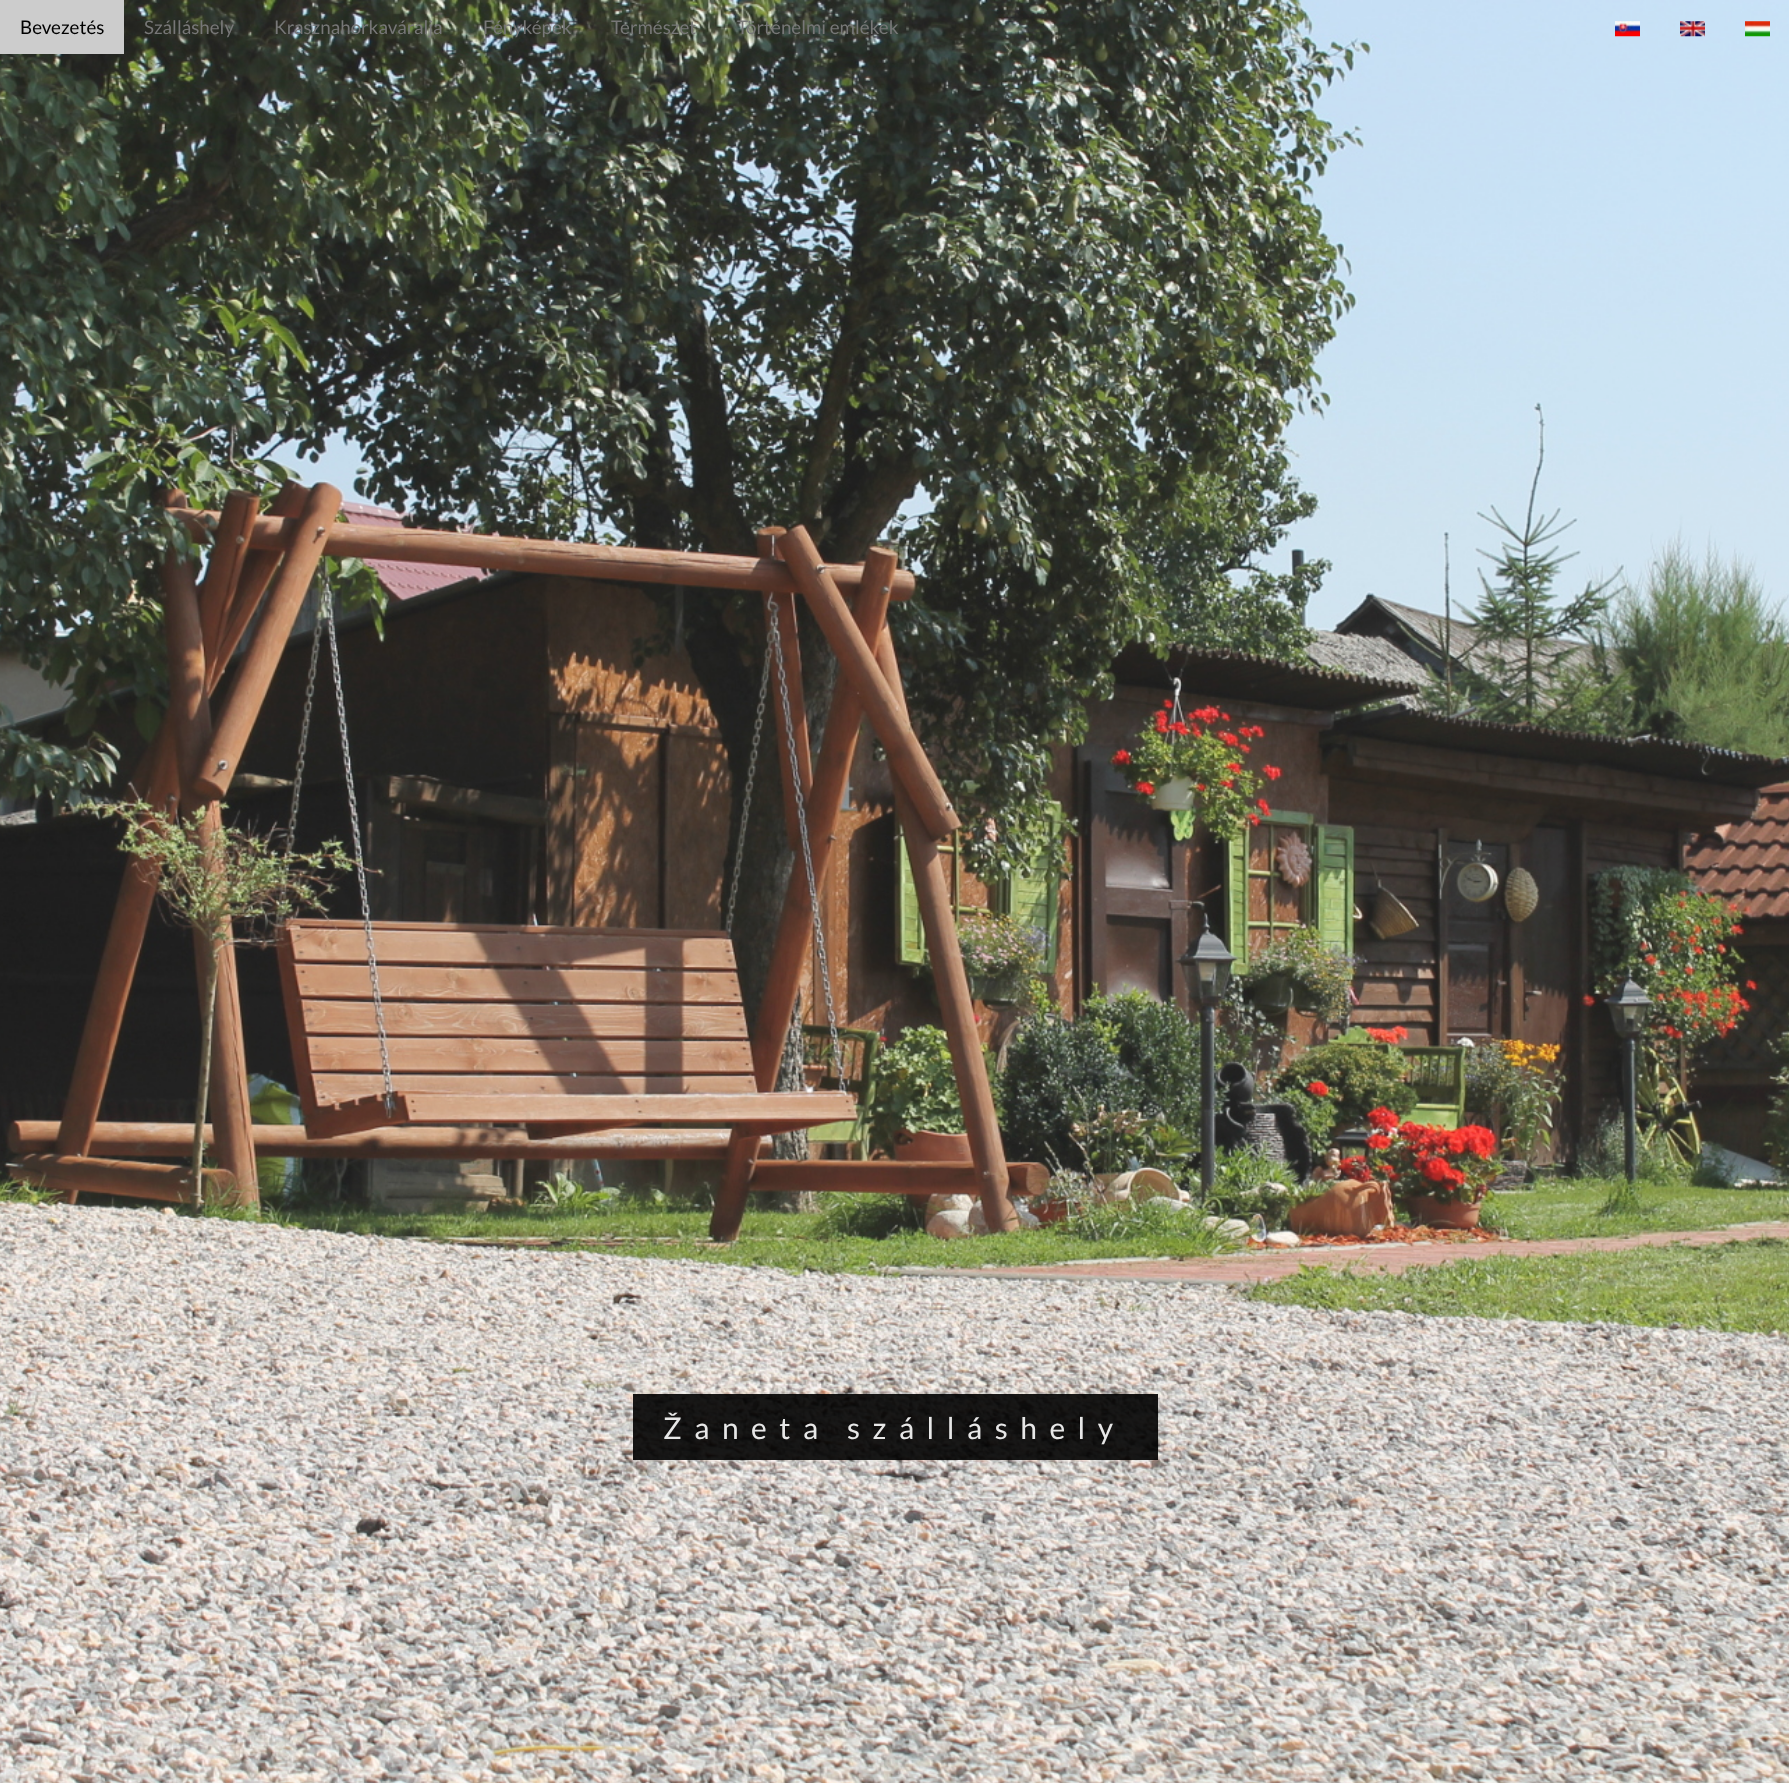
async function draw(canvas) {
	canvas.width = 1789;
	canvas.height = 1783;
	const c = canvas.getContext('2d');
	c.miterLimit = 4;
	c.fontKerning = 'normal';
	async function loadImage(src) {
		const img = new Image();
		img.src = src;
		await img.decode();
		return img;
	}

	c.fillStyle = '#fff';
	c.fillRect(0, 0, 1789, 1783);
	c.drawImage(await loadImage('img4.png'), 0, 0, 1789, 1783);
	c.fillStyle = '#ccc';
	c.fillRect(0, 0, 124, 54);
	c.font = '18.75px Lato';
	c.fillStyle = '#000';
	c.fillText('Bevezetés', 20, 34);
	c.fillStyle = '#777';
	for (const [text, x, y] of [
		['Szálláshely', 144, 34],
		['Krasznahorkaváralja', 274, 34],
		['Fényképek', 483, 34],
		['Természet', 611, 34],
		['Történelmi emlékek', 737, 34],
	]) {
		c.fillText(text, x, y);
	}
	c.drawImage(await loadImage('img1.png'), 1615, 21, 25, 16);
	c.drawImage(await loadImage('img2.png'), 1680, 21, 25, 16);
	c.drawImage(await loadImage('img3.png'), 1745, 21, 25, 16);
	c.fillStyle = '#000000e6';
	c.fillRect(633, 1394, 525, 66);
	c.letterSpacing = '12.5px';
	c.wordSpacing = '-2px';
	c.font = '30px Lato';
	c.fillStyle = '#e7e7e7';
	c.fillText('Žaneta szálláshely', 663, 1439);
}

draw(document.querySelector('canvas'));
